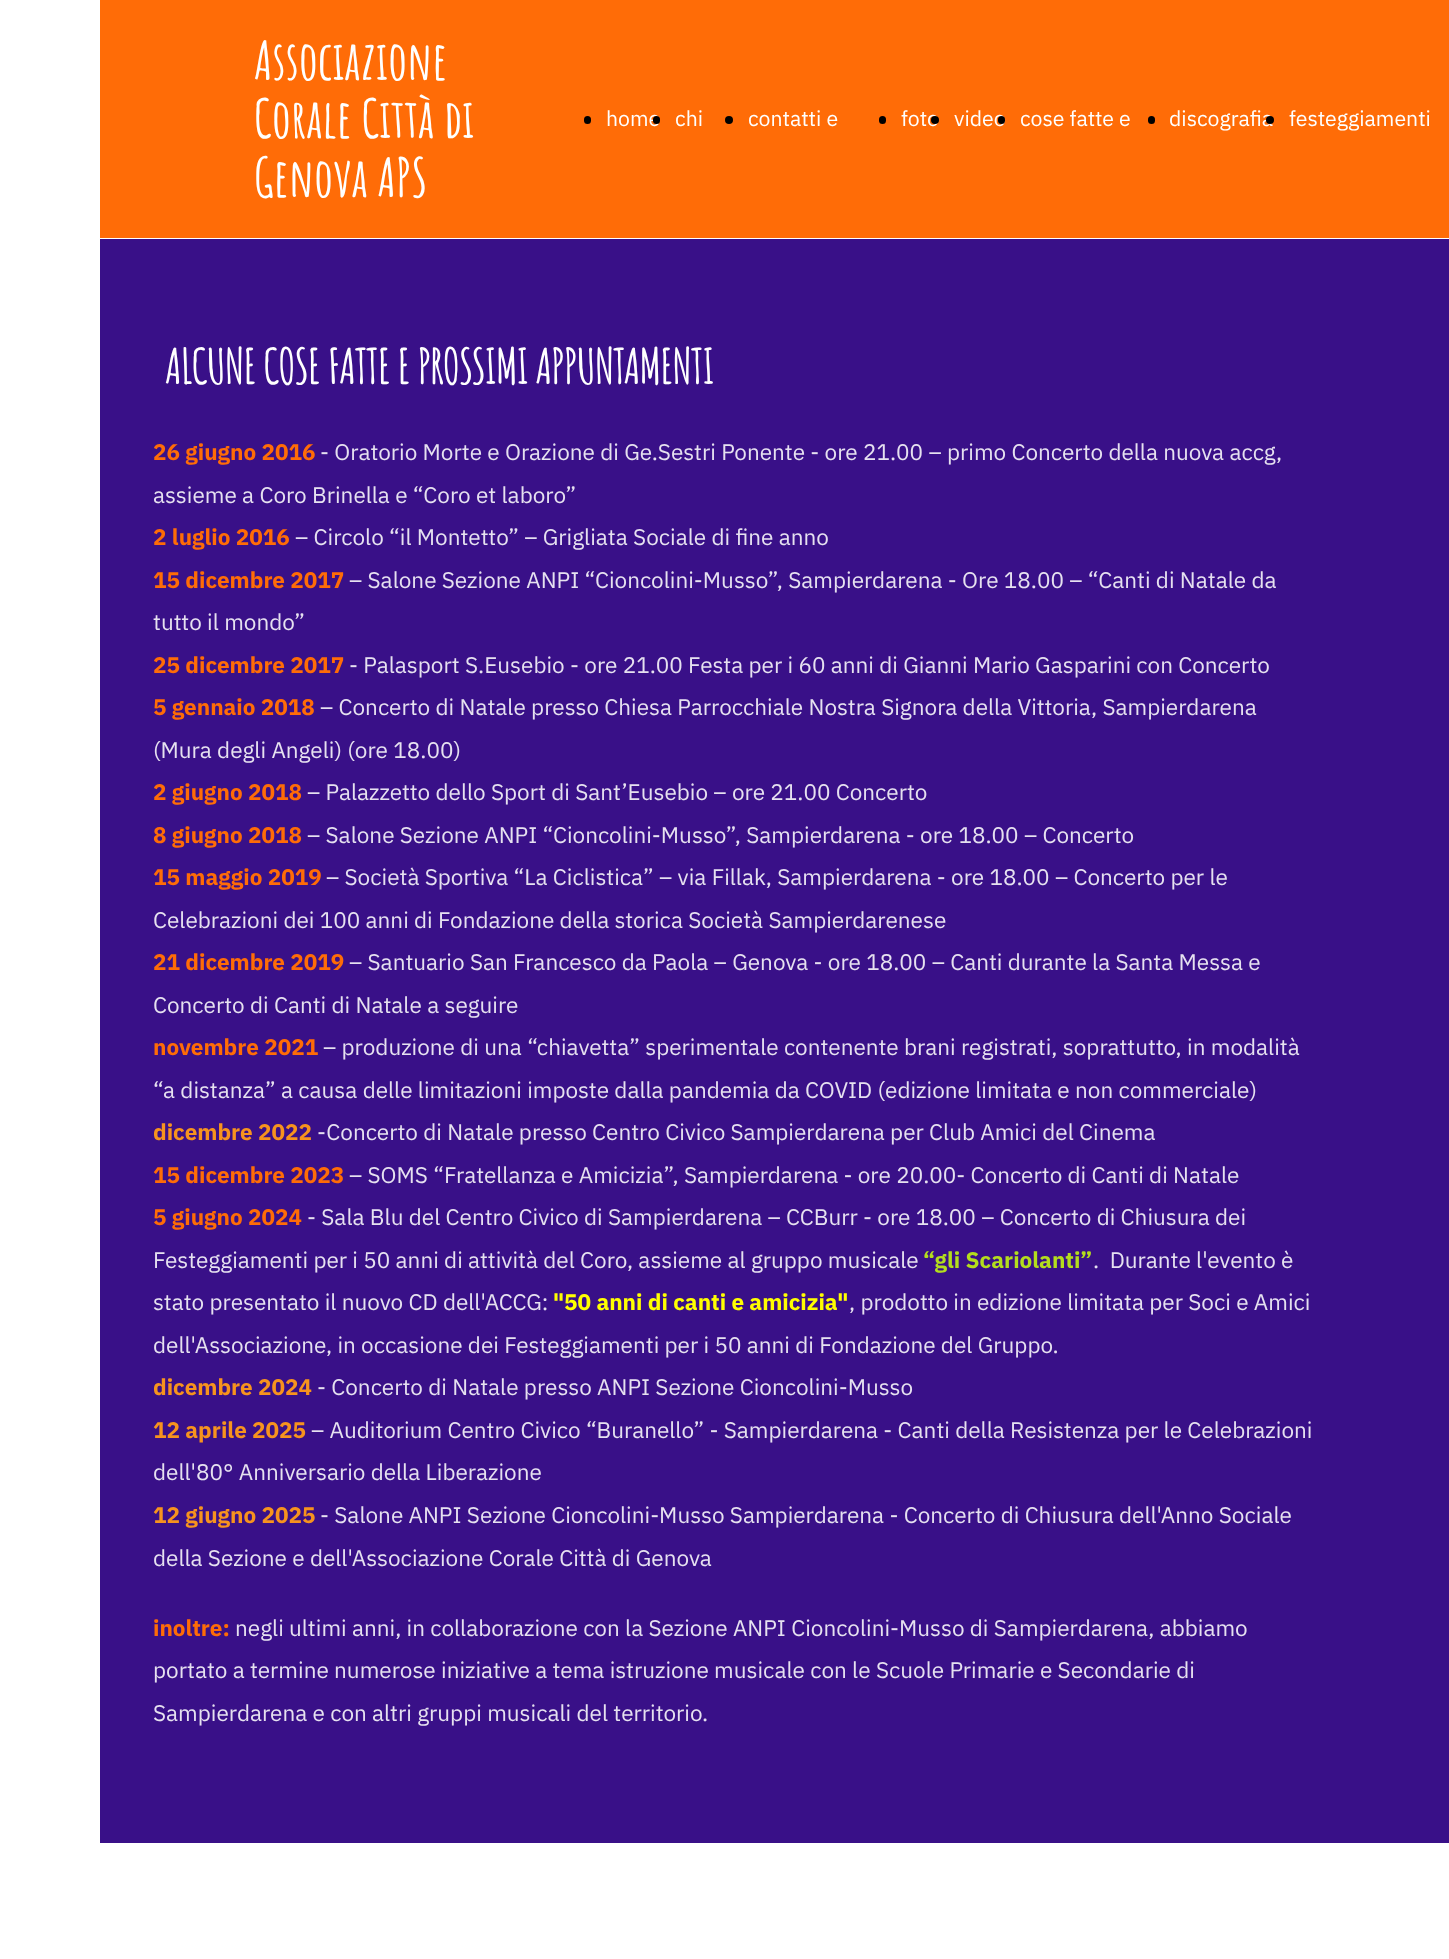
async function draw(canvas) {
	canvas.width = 1449;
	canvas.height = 1959;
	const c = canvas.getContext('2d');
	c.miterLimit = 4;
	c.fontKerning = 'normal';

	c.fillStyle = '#fff';
	c.fillRect(0, 0, 1449, 1959);
	c.fillStyle = '#ff6c07';
	c.fillRect(100, 0, 1349, 238);
	c.font = 'bold 53px Amatic SC';
	c.fillStyle = '#fff';
	for (const [text, x, y] of [
		['Associazione', 254, 80],
		['Corale Città di', 254, 138],
		['Genova APS', 254, 197],
	]) {
		c.fillText(text, x, y);
	}
	c.fillStyle = '#000';
	c.beginPath();
	c.roundRect(584, 116, 7, 8, 3.5);
	c.fill();
	c.font = '21.25px IBM Plex Sans';
	c.fillStyle = '#fff';
	c.fillText('home', 606, 126);
	c.fillStyle = '#000';
	c.beginPath();
	c.roundRect(653, 116, 7, 8, 3.5);
	c.fill();
	c.fillStyle = '#fff';
	c.fillText('chi', 675, 126);
	c.fillStyle = '#000';
	c.beginPath();
	c.arc(729, 120, 4, 0, 2 * Math.PI);
	c.fill();
	c.fillStyle = '#fff';
	c.fillText('contatti e', 748, 126);
	c.fillStyle = '#000';
	c.beginPath();
	c.roundRect(879, 116, 7, 8, 3.5);
	c.fill();
	c.fillStyle = '#fff';
	c.fillText('foto', 901, 126);
	c.fillStyle = '#000';
	c.beginPath();
	c.arc(935, 120, 4, 0, 2 * Math.PI);
	c.fill();
	c.fillStyle = '#fff';
	c.fillText('video', 954, 126);
	c.fillStyle = '#000';
	c.beginPath();
	c.roundRect(998, 116, 7, 8, 3.5);
	c.fill();
	c.fillStyle = '#fff';
	c.fillText('cose fatte e', 1020, 126);
	c.fillStyle = '#000';
	c.beginPath();
	c.roundRect(1148, 116, 7, 8, 3.5);
	c.fill();
	c.fillStyle = '#fff';
	c.fillText('discografia', 1169, 126);
	c.fillStyle = '#000';
	c.beginPath();
	c.arc(1270, 120, 4, 0, 2 * Math.PI);
	c.fill();
	c.fillStyle = '#fff';
	c.fillText('festeggiamenti', 1289, 126);
	c.fillStyle = '#391088';
	c.fillRect(100, 239, 1349, 1604);
	c.letterSpacing = '-1.25px';
	c.font = 'bold 48.4px Amatic SC';
	c.fillStyle = '#fff';
	c.fillText('ALCUNE COSE FATTE E PROSSIMI APPUNTAMENTI', 165, 384);
	c.letterSpacing = '0px';
	c.font = 'bold 22.5px IBM Plex Sans';
	c.fillStyle = '#ff6c07';
	c.fillText('26 giugno 2016', 153, 460);
	c.font = '22.5px IBM Plex Sans';
	c.fillStyle = '#e6e1f0';
	c.fillText('- Oratorio Morte e Orazione di Ge.Sestri Ponente - ore 21.00 – primo Concerto della nuova accg,', 320, 460);
	c.fillText('assieme a Coro Brinella e “Coro et laboro”', 153, 503);
	c.font = 'bold 22.5px IBM Plex Sans';
	c.fillStyle = '#ff6c07';
	c.fillText('2 luglio 2016', 153, 545);
	c.font = '22.5px IBM Plex Sans';
	c.fillStyle = '#e6e1f0';
	c.fillText('– Circolo “il Montetto” – Grigliata Sociale di fine anno', 295, 545);
	c.font = 'bold 22.5px IBM Plex Sans';
	c.fillStyle = '#ff6c07';
	c.fillText('15 dicembre 2017', 153, 588);
	c.font = '22.5px IBM Plex Sans';
	c.fillStyle = '#e6e1f0';
	c.fillText('– Salone Sezione ANPI “Cioncolini-Musso”, Sampierdarena - Ore 18.00 – “Canti di Natale da', 349, 588);
	c.fillText('tutto il mondo”', 153, 630);
	c.font = 'bold 22.5px IBM Plex Sans';
	c.fillStyle = '#ff6c07';
	c.fillText('25 dicembre 2017', 153, 673);
	c.font = '22.5px IBM Plex Sans';
	c.fillStyle = '#e6e1f0';
	c.fillText('- Palasport S.Eusebio - ore 21.00 Festa per i 60 anni di Gianni Mario Gasparini con Concerto', 349, 673);
	c.font = 'bold 22.5px IBM Plex Sans';
	c.fillStyle = '#ff6c07';
	c.fillText('5 gennaio 2018', 153, 715);
	c.font = '22.5px IBM Plex Sans';
	c.fillStyle = '#e6e1f0';
	c.fillText('– Concerto di Natale presso Chiesa Parrocchiale Nostra Signora della Vittoria, Sampierdarena', 320, 715);
	c.fillText('(Mura degli Angeli) (ore 18.00)', 153, 758);
	c.font = 'bold 22.5px IBM Plex Sans';
	c.fillStyle = '#ff6c07';
	c.fillText('2 giugno 2018', 153, 800);
	c.font = '22.5px IBM Plex Sans';
	c.fillStyle = '#e6e1f0';
	c.fillText('– Palazzetto dello Sport di Sant’Eusebio – ore 21.00 Concerto', 307, 800);
	c.font = 'bold 22.5px IBM Plex Sans';
	c.fillStyle = '#ff6c07';
	c.fillText('8 giugno 2018', 153, 843);
	c.font = '22.5px IBM Plex Sans';
	c.fillStyle = '#e6e1f0';
	c.fillText('– Salone Sezione ANPI “Cioncolini-Musso”, Sampierdarena - ore 18.00 – Concerto', 307, 843);
	c.font = 'bold 22.5px IBM Plex Sans';
	c.fillStyle = '#ff6c07';
	c.fillText('15 maggio 2019', 153, 885);
	c.font = '22.5px IBM Plex Sans';
	c.fillStyle = '#e6e1f0';
	c.fillText('– Società Sportiva “La Ciclistica” – via Fillak, Sampierdarena - ore 18.00 – Concerto per le', 326, 885);
	c.fillText('Celebrazioni dei 100 anni di Fondazione della storica Società Sampierdarenese', 153, 928);
	c.font = 'bold 22.5px IBM Plex Sans';
	c.fillStyle = '#ff6c07';
	c.fillText('21 dicembre 2019', 153, 970);
	c.font = '22.5px IBM Plex Sans';
	c.fillStyle = '#e6e1f0';
	c.fillText('– Santuario San Francesco da Paola – Genova - ore 18.00 – Canti durante la Santa Messa e', 349, 970);
	c.fillText('Concerto di Canti di Natale a seguire', 153, 1013);
	c.font = 'bold 22.5px IBM Plex Sans';
	c.fillStyle = '#ff6c07';
	c.fillText('novembre 2021', 153, 1055);
	c.font = '22.5px IBM Plex Sans';
	c.fillStyle = '#e6e1f0';
	c.fillText('– produzione di una “chiavetta” sperimentale contenente brani registrati, soprattutto, in modalità', 323, 1055);
	c.fillText('“a distanza” a causa delle limitazioni imposte dalla pandemia da COVID (edizione limitata e non commerciale)', 153, 1098);
	c.font = 'bold 22.5px IBM Plex Sans';
	c.fillStyle = '#f7931e';
	c.fillText('dicembre 2022', 153, 1140);
	c.font = '22.5px IBM Plex Sans';
	c.fillStyle = '#e6e1f0';
	c.fillText('-Concerto di Natale presso Centro Civico Sampierdarena per Club Amici del Cinema', 317, 1140);
	c.font = 'bold 22.5px IBM Plex Sans';
	c.fillStyle = '#ff6c07';
	c.fillText('15 dicembre 2023', 153, 1183);
	c.font = '22.5px IBM Plex Sans';
	c.fillStyle = '#e6e1f0';
	c.fillText('– SOMS “Fratellanza e Amicizia”, Sampierdarena - ore 20.00- Concerto di Canti di Natale', 349, 1183);
	c.font = 'bold 22.5px IBM Plex Sans';
	c.fillStyle = '#ff6c07';
	c.fillText('5 giugno 2024', 153, 1225);
	c.font = '22.5px IBM Plex Sans';
	c.fillStyle = '#e6e1f0';
	c.fillText('- Sala Blu del Centro Civico di Sampierdarena – CCBurr - ore 18.00 – Concerto di Chiusura dei', 307, 1225);
	c.fillText('Festeggiamenti per i 50 anni di attività del Coro, assieme al gruppo musicale', 153, 1268);
	c.font = 'bold 22.5px IBM Plex Sans';
	c.fillStyle = '#b4de1d';
	c.fillText('“gli Scariolanti”', 923, 1268);
	c.font = '22.5px IBM Plex Sans';
	c.fillStyle = '#e6e1f0';
	c.fillText('.  Durante l\'evento è', 1093, 1268);
	c.fillText('stato presentato il nuovo CD dell\'ACCG:', 153, 1310);
	c.font = 'bold 22.5px IBM Plex Sans';
	c.fillStyle = '#ff0';
	c.fillText('"50 anni di canti e amicizia"', 553, 1310);
	c.font = '22.5px IBM Plex Sans';
	c.fillStyle = '#e6e1f0';
	c.fillText(', prodotto in edizione limitata per Soci e Amici', 849, 1310);
	c.fillText('dell\'Associazione, in occasione dei Festeggiamenti per i 50 anni di Fondazione del Gruppo.', 153, 1353);
	c.font = 'bold 22.5px IBM Plex Sans';
	c.fillStyle = '#f7931e';
	c.fillText('dicembre 2024', 153, 1395);
	c.font = '22.5px IBM Plex Sans';
	c.fillStyle = '#e6e1f0';
	c.fillText('- Concerto di Natale presso ANPI Sezione Cioncolini-Musso', 317, 1395);
	c.font = 'bold 22.5px IBM Plex Sans';
	c.fillStyle = '#f7931e';
	c.fillText('12 aprile 2025', 153, 1438);
	c.font = '22.5px IBM Plex Sans';
	c.fillStyle = '#e6e1f0';
	c.fillText('– Auditorium Centro Civico “Buranello” - Sampierdarena - Canti della Resistenza per le Celebrazioni', 311, 1438);
	c.fillText('dell\'80° Anniversario della Liberazione', 153, 1480);
	c.font = 'bold 22.5px IBM Plex Sans';
	c.fillStyle = '#f7931e';
	c.fillText('12 giugno 2025', 153, 1523);
	c.font = '22.5px IBM Plex Sans';
	c.fillStyle = '#e6e1f0';
	c.fillText('- Salone ANPI Sezione Cioncolini-Musso Sampierdarena - Concerto di Chiusura dell\'Anno Sociale', 320, 1523);
	c.fillText('della Sezione e dell\'Associazione Corale Città di Genova', 153, 1566);
	c.font = 'bold 22.5px IBM Plex Sans';
	c.fillStyle = '#ff6c07';
	c.fillText('inoltre:', 153, 1636);
	c.font = '22.5px IBM Plex Sans';
	c.fillStyle = '#e6e1f0';
	for (const [text, x, y] of [
		['negli ultimi anni, in collaborazione con la Sezione ANPI Cioncolini-Musso di Sampierdarena, abbiamo', 235, 1636],
		['portato a termine numerose iniziative a tema istruzione musicale con le Scuole Primarie e Secondarie di', 153, 1678],
		['Sampierdarena e con altri gruppi musicali del territorio.', 153, 1721],
	]) {
		c.fillText(text, x, y);
	}
}

draw(document.querySelector('canvas'));
